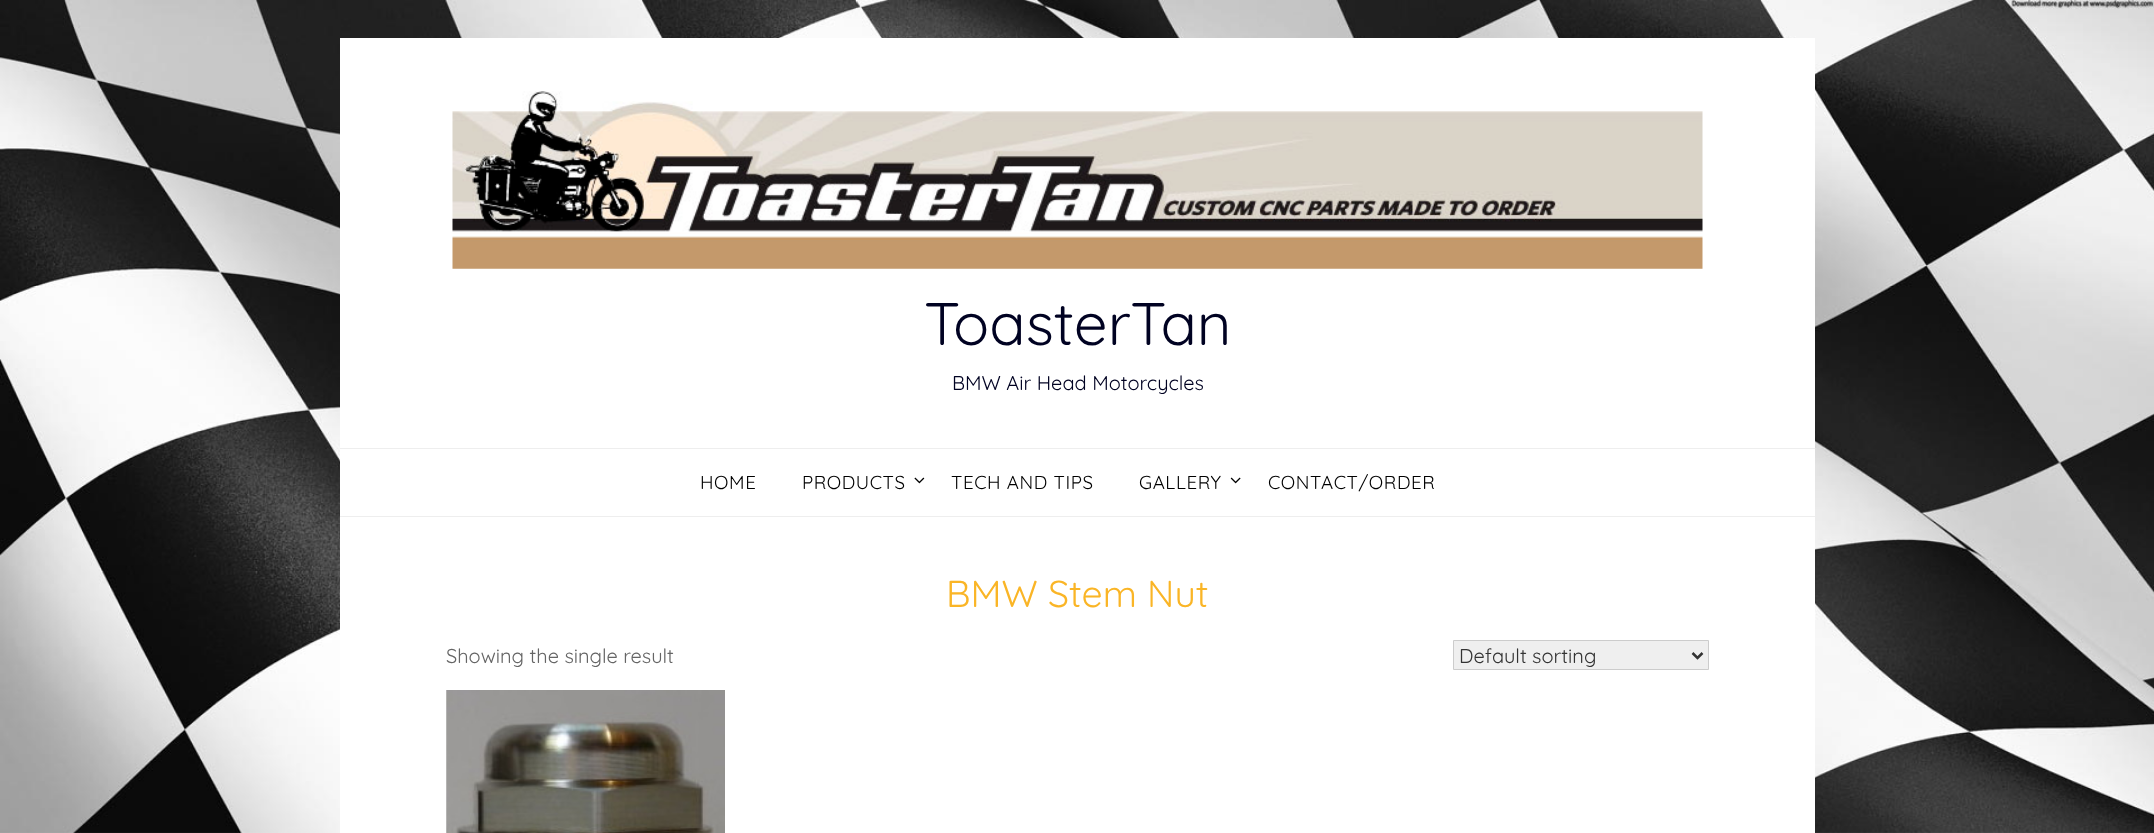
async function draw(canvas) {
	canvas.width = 2154;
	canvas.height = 833;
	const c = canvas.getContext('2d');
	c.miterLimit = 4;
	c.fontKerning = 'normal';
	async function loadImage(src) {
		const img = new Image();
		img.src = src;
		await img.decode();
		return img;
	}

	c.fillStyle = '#fff';
	c.fillRect(0, 0, 2154, 833);
	c.drawImage(await loadImage('img1.png'), 0, 0, 2154, 833);
	c.fillRect(340, 38, 1475, 410);
	c.drawImage(await loadImage('img2.png'), 452, 91, 1251, 178);
	c.font = '60px Quicksand';
	c.fillStyle = '#000222';
	c.fillText('ToasterTan', 924, 345);
	c.font = '20px Quicksand';
	c.fillText('BMW Air Head Motorcycles', 952, 390);
	for (const [x, y, w, h, color] of [
		[340, 448, 1475, 1, '#eee'],
		[340, 449, 1475, 384, '#fff'],
		[340, 516, 1475, 1, '#eee'],
	]) {
		c.fillStyle = color;
		c.fillRect(x, y, w, h);
	}
	c.letterSpacing = '0.6px';
	c.font = '18.75px Quicksand';
	c.fillStyle = '#000';
	c.fillText('HOME', 700, 489);
	c.fillText('PRODUCTS', 802, 489);
	c.drawImage(await loadImage('img3.png'), 914, 477, 11, 7);
	c.fillText('TECH AND TIPS', 951, 489);
	c.fillText('GALLERY', 1139, 489);
	c.drawImage(await loadImage('img4.png'), 1230, 477, 11, 7);
	c.fillText('CONTACT/ORDER', 1268, 489);
	c.letterSpacing = '0px';
	c.font = '37.5px Quicksand';
	c.fillStyle = '#fab526';
	c.fillText('BMW Stem Nut', 946, 607);
	c.font = '20px Quicksand';
	c.fillStyle = '#656565';
	c.fillText('Showing the single result', 446, 663);
	c.fillStyle = '#efefef';
	c.beginPath();
	c.rect(1453.5, 640.5, 255, 29);
	c.fill();
	c.strokeStyle = '#ccc';
	c.stroke();
	c.beginPath();
	c.moveTo(1692.5, 653);
	c.lineTo(1697.5, 658);
	c.lineTo(1702.5, 653);
	c.strokeStyle = '#333';
	c.lineWidth = 2.5;
	c.stroke();
	c.fillStyle = '#333';
	c.fillText('Default sorting', 1459, 663);
	c.drawImage(await loadImage('img5.png'), 446, 690, 279, 143);
}

draw(document.querySelector('canvas'));
